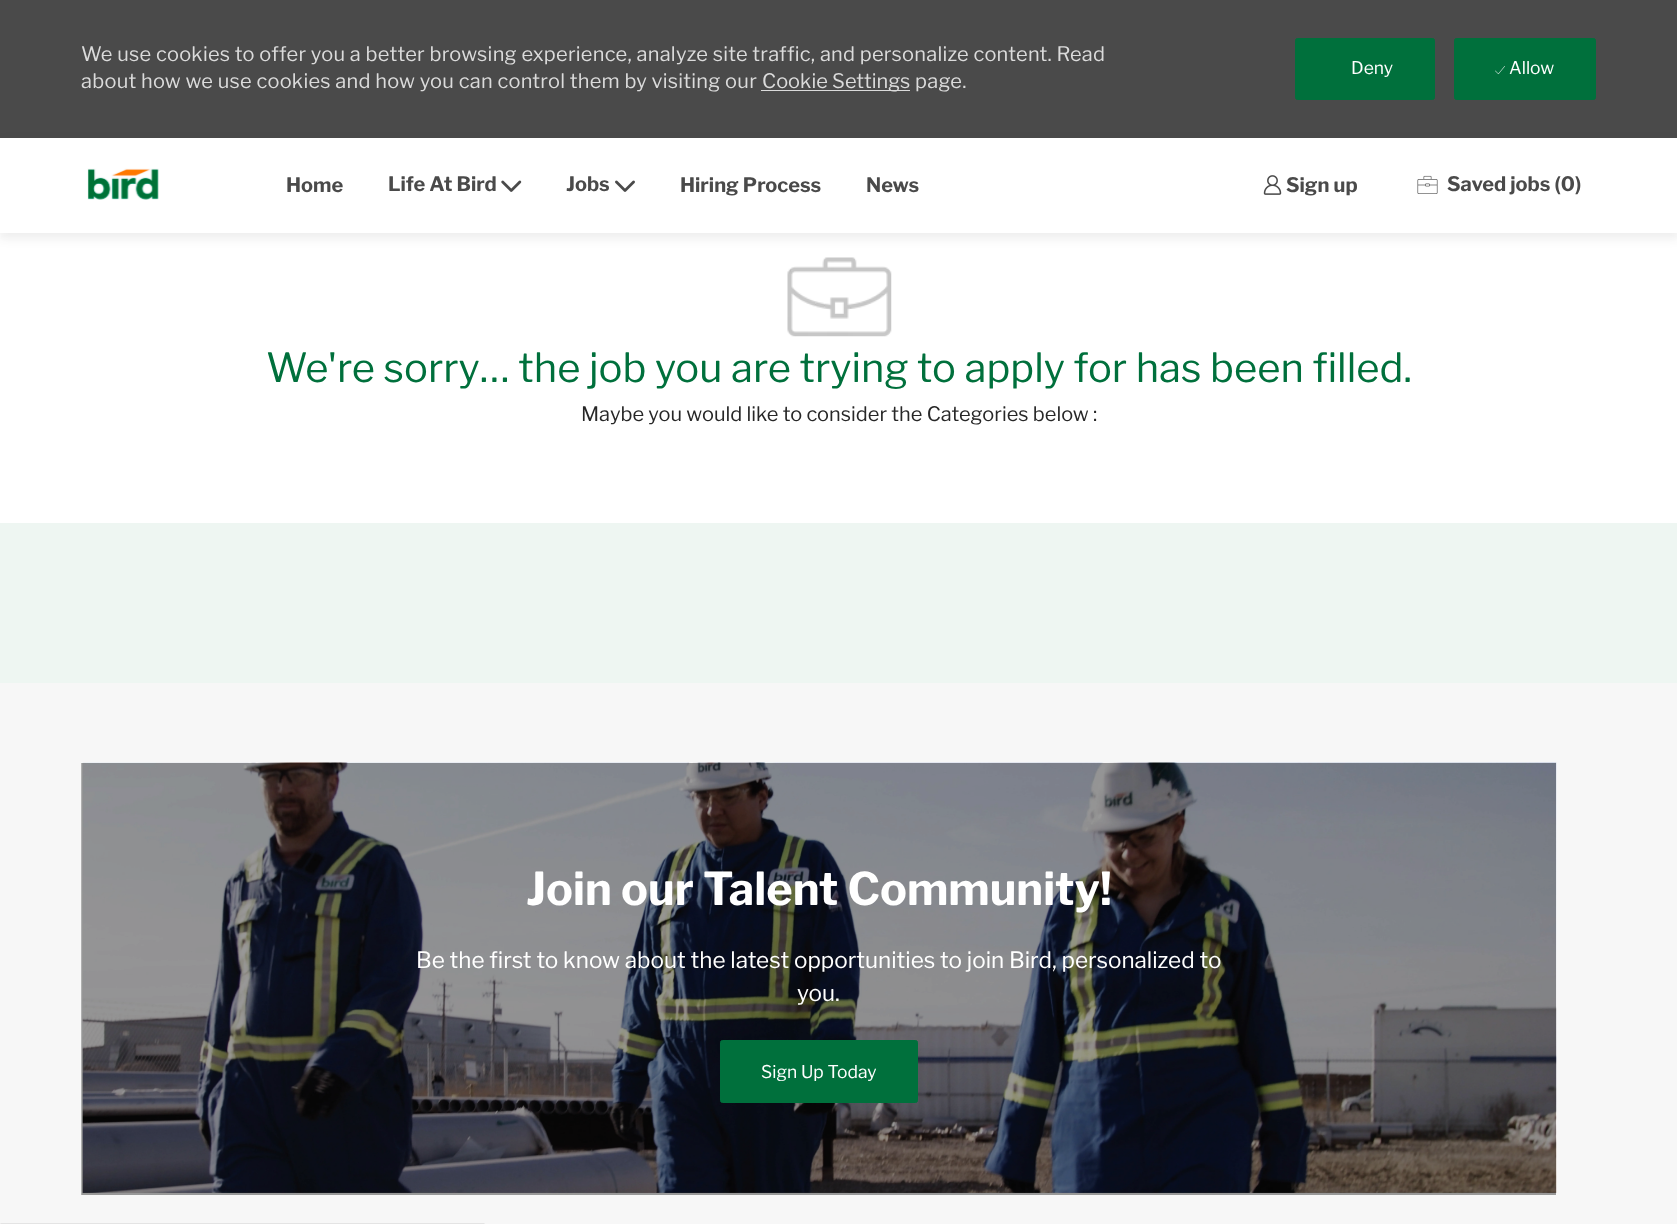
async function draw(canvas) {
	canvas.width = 1677;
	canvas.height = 1224;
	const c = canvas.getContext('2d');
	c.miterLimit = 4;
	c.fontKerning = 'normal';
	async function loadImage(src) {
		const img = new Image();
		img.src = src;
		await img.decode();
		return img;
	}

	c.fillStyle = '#fff';
	c.fillRect(0, 0, 1677, 1224);
	c.fillStyle = '#4a4a4a';
	c.fillRect(0, 0, 1677, 138);
	c.letterSpacing = '0.25px';
	c.font = '20px Libre Franklin';
	c.fillStyle = '#dbdbdb';
	c.fillText('We use cookies to offer you a better browsing experience, analyze site traffic, and personalize content. Read', 81, 61);
	c.fillText('about how we use cookies and how you can control them by visiting our', 81, 88);
	c.fillRect(761, 90, 149, 1);
	c.letterSpacing = '0px';
	c.fillText('Cookie Settings', 762, 88);
	c.letterSpacing = '0.25px';
	c.fillText('page.', 915, 88);
	c.fillStyle = '#00703c';
	c.beginPath();
	c.roundRect(1295.5, 38.5, 139, 61, 2);
	c.fill();
	c.strokeStyle = '#00703c';
	c.stroke();
	c.letterSpacing = '0px';
	c.font = '17.5px Libre Franklin';
	c.fillStyle = '#fff';
	c.fillText('Deny', 1351, 74);
	c.fillStyle = '#00703c';
	c.beginPath();
	c.roundRect(1454.5, 38.5, 141, 61, 2);
	c.fill();
	c.stroke();
	c.drawImage(await loadImage('img1.png'), 1495, 66, 10, 9);
	c.fillStyle = '#fff';
	c.fillText('Allow', 1509, 74);
	c.drawImage(await loadImage('img2.png'), 787, 257, 105, 80);
	c.font = '40px Libre Franklin';
	c.fillStyle = '#00703c';
	c.fillText('We\'re sorry… the job you are trying to apply for has been filled.', 266, 382);
	c.font = '20px Libre Franklin';
	c.fillStyle = '#272727';
	c.fillText('Maybe you would like to consider the Categories below :', 581, 421);
	c.fillStyle = '#eef6f2';
	c.fillRect(0, 523, 1677, 160);
	c.fillStyle = '#f7f7f7';
	c.fillRect(0, 683, 1677, 541);
	c.drawImage(await loadImage('img3.png'), 81, 762, 1476, 433);
	c.font = 'bold 45px Libre Franklin';
	c.fillStyle = '#fff';
	c.fillText('Join our Talent Community!', 526, 905);
	c.font = '22.5px Libre Franklin';
	c.fillText('Be the first to know about the latest opportunities to join Bird, personalized to', 416, 968);
	c.fillText('you.', 797, 1001);
	c.fillStyle = '#00703c';
	c.beginPath();
	c.roundRect(720.5, 1040.5, 197, 62, 2);
	c.fill();
	c.stroke();
	c.font = '17.5px Libre Franklin';
	c.fillStyle = '#fff';
	c.fillText('Sign Up Today', 761, 1078);
	c.fillStyle = '#e4e4e4';
	c.beginPath();
	c.roundRect(0, 1223, 485, 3, 1.5);
	c.fill();
	c.fillStyle = '#22242b14';
	c.filter = 'blur(5px)';
	c.beginPath();
	c.rect(-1, 141, 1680, 98);
	c.fill();
	c.filter = 'none';
	c.fillStyle = '#fff';
	c.fillRect(0, 138, 1677, 95);
	c.drawImage(await loadImage('img4.png'), 87, 168, 72, 32);
	c.font = 'bold 20px Libre Franklin';
	c.fillStyle = '#4a4a4a';
	c.fillText('Home', 286, 192);
	c.fillText('Life At Bird', 388, 191);
	c.drawImage(await loadImage('img5.png'), 501, 180, 21, 12);
	c.fillText('Jobs', 566, 191);
	c.drawImage(await loadImage('img6.png'), 615, 180, 20, 12);
	c.fillText('Hiring Process', 680, 192);
	c.fillText('News', 866, 192);
	c.drawImage(await loadImage('img7.png'), 1263, 175, 19, 20);
	c.fillText('Sign up', 1286, 192);
	c.drawImage(await loadImage('img8.png'), 1417, 175, 21, 19);
	c.fillText('Saved jobs (0)', 1447, 191);
}

draw(document.querySelector('canvas'));
